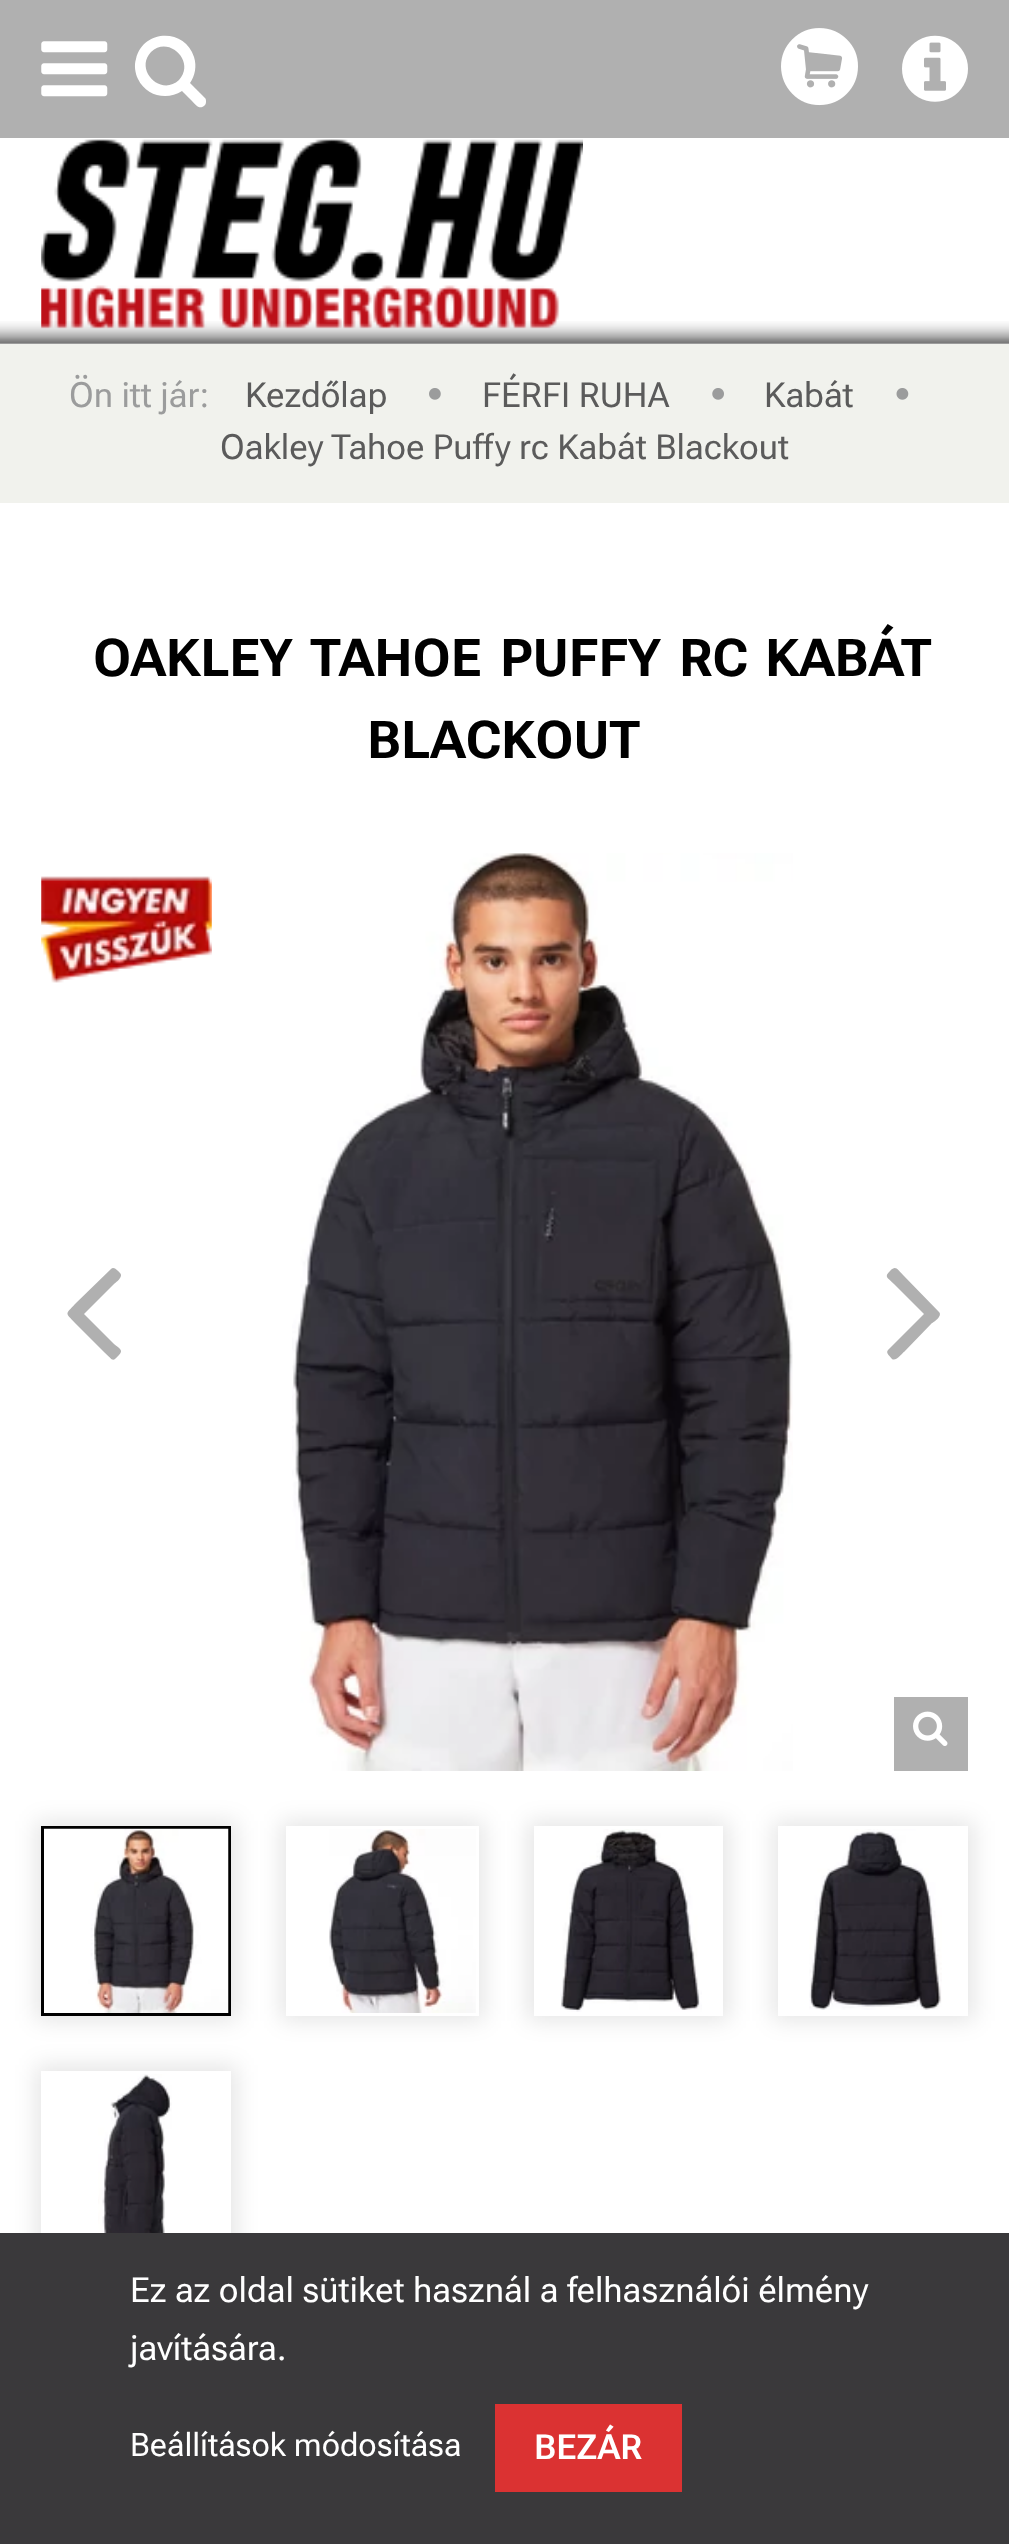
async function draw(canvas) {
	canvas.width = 1009;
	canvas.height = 2544;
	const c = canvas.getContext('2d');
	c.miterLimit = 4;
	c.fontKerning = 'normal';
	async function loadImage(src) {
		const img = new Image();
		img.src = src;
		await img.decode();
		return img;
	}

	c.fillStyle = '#fff';
	c.fillRect(0, 0, 1009, 2544);
	c.fillStyle = '#b0b0b0';
	c.fillRect(0, 0, 1009, 138);
	c.drawImage(await loadImage('img1.png'), 41, 41, 67, 56);
	c.fillStyle = '#fff';
	c.beginPath();
	c.moveTo(179, 80);
	c.bezierCurveTo(196, 62, 169, 35, 151, 52);
	c.bezierCurveTo(134, 70, 161, 97, 179, 80);
	c.closePath();
	c.moveTo(206, 102);
	c.bezierCurveTo(206, 104, 205, 105, 204, 106);
	c.bezierCurveTo(199, 110, 195, 104, 192, 101);
	c.lineTo(182, 91);
	c.bezierCurveTo(167, 101, 146, 96, 138, 79);
	c.bezierCurveTo(135, 73, 134, 65, 136, 59);
	c.bezierCurveTo(143, 29, 185, 28, 194, 57);
	c.bezierCurveTo(197, 66, 195, 76, 190, 83);
	c.lineTo(205, 98);
	c.bezierCurveTo(206, 99, 206, 100, 206, 102);
	c.closePath();
	c.fill();
	c.drawImage(await loadImage('img2.png'), 781, 28, 77, 78);
	c.drawImage(await loadImage('img3.png'), 902, 35, 66, 67);
	c.drawImage(await loadImage('img4.png'), 0, 321, 1009, 23);
	c.drawImage(await loadImage('img5.png'), 41, 139, 542, 190);
	c.fillStyle = '#f1f2ed';
	c.fillRect(0, 344, 1009, 159);
	c.font = '34.65px Roboto Flex';
	c.fillStyle = '#9b9c9c';
	c.fillText('Ön itt jár:', 69, 407);
	c.fillStyle = '#5b5b5b';
	c.fillText('Kezdőlap', 245, 407);
	c.drawImage(await loadImage('img6.png'), 429, 388, 12, 12);
	c.fillText('FÉRFI RUHA', 482, 407);
	c.drawImage(await loadImage('img7.png'), 712, 388, 12, 12);
	c.fillText('Kabát', 764, 407);
	c.drawImage(await loadImage('img8.png'), 896, 388, 13, 12);
	c.fillText('Oakley Tahoe Puffy rc Kabát Blackout', 220, 459);
	c.font = 'bold 52px Roboto Flex';
	c.fillStyle = '#000';
	for (const [text, x, y] of [
		['OAKLEY', 93, 676],
		['TAHOE', 310, 676],
		['PUFFY', 500, 676],
		['RC', 679, 676],
		['KABÁT', 765, 676],
		['BLACKOUT', 367, 758],
	]) {
		c.fillText(text, x, y);
	}
	c.fillStyle = '#b0b0b0';
	c.beginPath();
	c.moveTo(120, 1273);
	c.bezierCurveTo(124, 1277, 115, 1283, 114, 1284);
	c.lineTo(84, 1314);
	c.lineTo(114, 1344);
	c.bezierCurveTo(119, 1348, 124, 1350, 119, 1355);
	c.bezierCurveTo(112, 1363, 113, 1360, 104, 1352);
	c.lineTo(75, 1323);
	c.bezierCurveTo(65, 1312, 65, 1315, 75, 1304);
	c.lineTo(111, 1269);
	c.bezierCurveTo(114, 1266, 118, 1271, 120, 1273);
	c.closePath();
	c.fill();
	c.drawImage(await loadImage('img9.png'), 292, 853, 501, 918);
	c.fillRect(894, 1697, 74, 74);
	c.drawImage(await loadImage('img10.png'), 913, 1711, 35, 35);
	c.beginPath();
	c.moveTo(939, 1312);
	c.bezierCurveTo(943, 1316, 933, 1323, 932, 1323);
	c.lineTo(904, 1352);
	c.bezierCurveTo(903, 1352, 896, 1362, 892, 1359);
	c.bezierCurveTo(891, 1357, 885, 1353, 888, 1350);
	c.lineTo(924, 1314);
	c.lineTo(894, 1284);
	c.bezierCurveTo(887, 1277, 884, 1277, 890, 1271);
	c.bezierCurveTo(896, 1265, 897, 1269, 904, 1276);
	c.closePath();
	c.fill();
	c.drawImage(await loadImage('img11.png'), 41, 876, 171, 107);
	c.fillStyle = '#0000001a';
	c.filter = 'blur(11px)';
	c.beginPath();
	c.rect(36, 1821, 201, 200);
	c.fill();
	c.filter = 'none';
	c.strokeStyle = '#000';
	c.lineWidth = 3;
	c.strokeRect(42.5, 1827.5, 187, 187);
	c.drawImage(await loadImage('img12.png'), 44, 1828, 185, 185);
	c.save();
	c.beginPath();
	c.moveTo(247, 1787);
	c.lineTo(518, 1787);
	c.lineTo(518, 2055);
	c.lineTo(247, 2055);
	c.closePath();
	c.moveTo(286, 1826);
	c.lineTo(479, 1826);
	c.lineTo(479, 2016);
	c.lineTo(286, 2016);
	c.closePath();
	c.clip('evenodd');
	c.filter = 'blur(11px)';
	c.beginPath();
	c.rect(281, 1821, 203, 200);
	c.fill();
	c.filter = 'none';
	c.restore();
	c.drawImage(await loadImage('img13.png'), 329, 1829, 147, 184);
	c.save();
	c.beginPath();
	c.moveTo(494, 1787);
	c.lineTo(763, 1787);
	c.lineTo(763, 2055);
	c.lineTo(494, 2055);
	c.closePath();
	c.moveTo(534, 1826);
	c.lineTo(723, 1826);
	c.lineTo(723, 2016);
	c.lineTo(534, 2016);
	c.closePath();
	c.clip('evenodd');
	c.filter = 'blur(11px)';
	c.beginPath();
	c.rect(528, 1821, 201, 200);
	c.fill();
	c.filter = 'none';
	c.restore();
	c.drawImage(await loadImage('img14.png'), 560, 1829, 142, 183);
	c.save();
	c.beginPath();
	c.moveTo(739, 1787);
	c.lineTo(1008, 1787);
	c.lineTo(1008, 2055);
	c.lineTo(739, 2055);
	c.closePath();
	c.moveTo(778, 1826);
	c.lineTo(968, 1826);
	c.lineTo(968, 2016);
	c.lineTo(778, 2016);
	c.closePath();
	c.clip('evenodd');
	c.filter = 'blur(11px)';
	c.beginPath();
	c.rect(773, 1821, 201, 200);
	c.fill();
	c.filter = 'none';
	c.restore();
	c.drawImage(await loadImage('img15.png'), 809, 1829, 133, 181);
	c.save();
	c.beginPath();
	c.moveTo(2, 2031);
	c.lineTo(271, 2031);
	c.lineTo(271, 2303);
	c.lineTo(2, 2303);
	c.closePath();
	c.moveTo(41, 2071);
	c.lineTo(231, 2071);
	c.lineTo(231, 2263);
	c.lineTo(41, 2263);
	c.closePath();
	c.clip('evenodd');
	c.filter = 'blur(11px)';
	c.beginPath();
	c.rect(36, 2065, 201, 204);
	c.fill();
	c.filter = 'none';
	c.restore();
	c.drawImage(await loadImage('img16.png'), 98, 2074, 74, 159);
	c.fillStyle = '#3a393b';
	c.fillRect(0, 2233, 1009, 311);
	c.font = '34.65px Roboto Flex';
	c.fillStyle = '#fff';
	c.fillText('Ez az oldal sütiket használ a felhasználói élmény', 130, 2302);
	c.fillText('javítására.', 130, 2360);
	c.font = '32.25px Roboto Flex';
	c.fillText('Beállítások módosítása', 130, 2456);
	c.fillStyle = '#db3232';
	c.fillRect(495, 2404, 187, 88);
	c.font = '600 34.65px Roboto Flex';
	c.fillStyle = '#fff';
	c.fillText('BEZÁR', 534, 2459);
}

draw(document.querySelector('canvas'));
